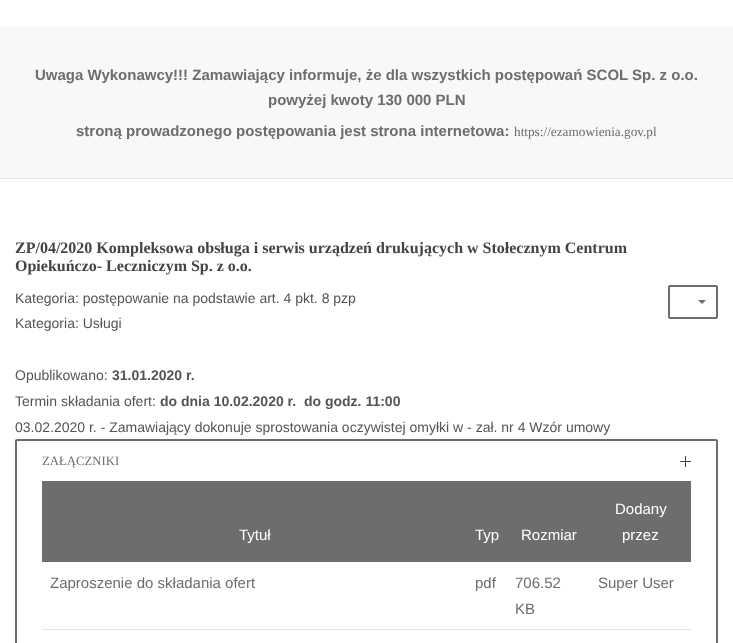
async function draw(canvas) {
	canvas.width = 733;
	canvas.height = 643;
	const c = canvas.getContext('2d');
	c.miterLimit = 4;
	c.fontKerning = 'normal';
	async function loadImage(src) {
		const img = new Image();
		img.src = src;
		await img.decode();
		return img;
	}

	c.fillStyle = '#fff';
	c.fillRect(0, 0, 733, 643);
	c.fillStyle = '#f8f8f8';
	c.fillRect(0, 27, 733, 151);
	c.font = 'bold 15px Liberation Sans';
	c.fillStyle = '#6d6d6d';
	for (const [text, x, y] of [
		['Uwaga Wykonawcy!!! Zamawiający informuje, że dla wszystkich postępowań SCOL Sp. z o.o.', 35, 80],
		['powyżej kwoty 130 000 PLN', 268, 105],
		['stroną prowadzonego postępowania jest strona internetowa:', 76, 136],
	]) {
		c.fillText(text, x, y);
	}
	c.font = '13.25px Liberation Serif';
	c.fillText('https://ezamowienia.gov.pl', 514, 136);
	c.fillStyle = '#e2e2e2';
	c.fillRect(0, 178, 733, 1);
	c.font = 'bold 16px Liberation Serif';
	c.fillStyle = '#444';
	c.fillText('ZP/04/2020 Kompleksowa obsługa i serwis urządzeń drukujących w Stołecznym Centrum', 15, 253);
	c.fillText('Opiekuńczo- Leczniczym Sp. z o.o.', 15, 271);
	c.font = '14px Liberation Sans';
	c.fillStyle = '#545454';
	for (const [text, x, y] of [
		['Kategoria: postępowanie na podstawie art. 4 pkt. 8 pzp', 15, 303],
		['Kategoria: Usługi', 15, 328],
		['Opublikowano:', 15, 380],
	]) {
		c.fillText(text, x, y);
	}
	c.font = 'bold 14px Liberation Sans';
	c.fillText('31.01.2020 r.', 112, 380);
	c.font = '14px Liberation Sans';
	c.fillText('Termin składania ofert:', 15, 406);
	c.font = 'bold 14px Liberation Sans';
	c.fillText('do dnia 10.02.2020 r.  do godz. 11:00', 160, 406);
	c.font = '14px Liberation Sans';
	c.fillText('03.02.2020 r. - Zamawiający dokonuje sprostowania oczywistej omyłki w - zał. nr 4 Wzór umowy', 15, 432);
	c.beginPath();
	c.roundRect(669, 286, 48, 32, 1);
	c.strokeStyle = '#6d6d6d';
	c.lineWidth = 2;
	c.stroke();
	c.fillStyle = '#6d6d6d';
	c.beginPath();
	c.moveTo(698, 300);
	c.lineTo(706, 300);
	c.lineTo(702, 304);
	c.closePath();
	c.fill();
	c.beginPath();
	c.roundRect(16, 440, 701, 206, 1);
	c.stroke();
	c.font = '12.75px Liberation Serif';
	c.fillText('ZAŁĄCZNIKI', 42, 465);
	c.drawImage(await loadImage('img1.png'), 680, 456, 11, 11);
	c.fillRect(42, 481, 649, 81);
	c.font = '15px Liberation Sans';
	c.fillStyle = '#fff';
	for (const [text, x, y] of [
		['Tytuł', 239, 540],
		['Typ', 475, 540],
		['Rozmiar', 521, 540],
		['Dodany', 615, 514],
		['przez', 622, 540],
	]) {
		c.fillText(text, x, y);
	}
	c.fillStyle = '#6d6d6d';
	for (const [text, x, y] of [
		['Zaproszenie do składania ofert', 50, 588],
		['pdf', 475, 588],
		['706.52', 515, 588],
		['KB', 515, 614],
		['Super User', 598, 588],
	]) {
		c.fillText(text, x, y);
	}
	c.fillStyle = '#e2e2e2';
	c.fillRect(42, 629, 649, 1);
}

draw(document.querySelector('canvas'));
